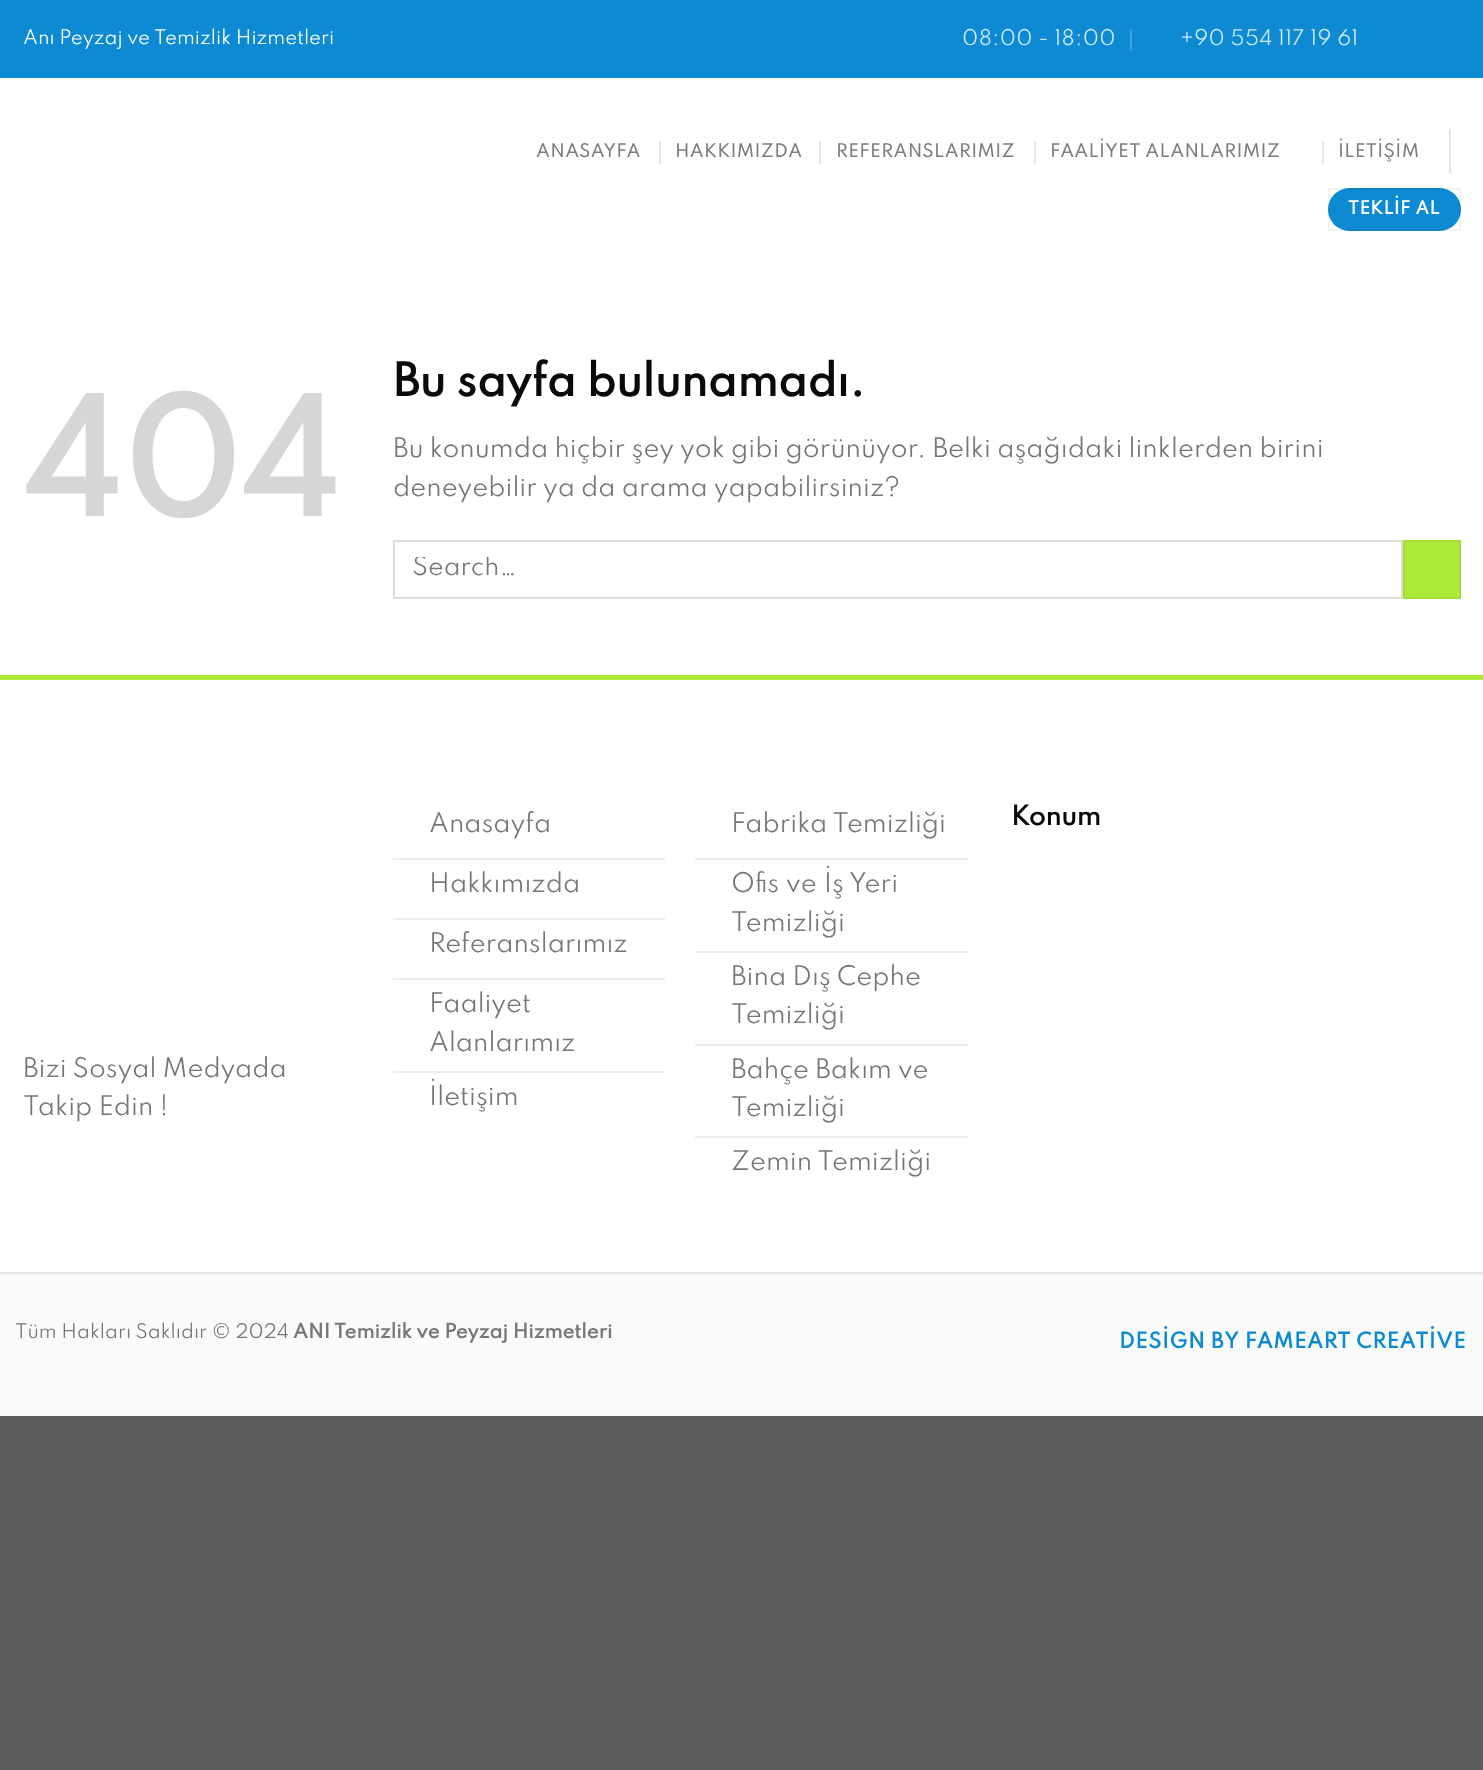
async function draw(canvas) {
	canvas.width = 1483;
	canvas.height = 1770;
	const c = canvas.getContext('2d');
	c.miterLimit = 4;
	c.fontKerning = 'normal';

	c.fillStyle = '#5b5b5b';
	c.fillRect(0, 0, 1483, 1770);
	c.fillStyle = '#fff';
	c.fillRect(0, 78, 1483, 1194);
	c.fillStyle = '#0d8ad1';
	c.fillRect(0, 0, 1483, 78);
	c.font = '18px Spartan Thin';
	c.fillStyle = '#fff';
	c.fillText('Anı Peyzaj ve Temizlik Hizmetleri', 23, 44);
	c.letterSpacing = '0.4px';
	c.font = '19.25px Spartan Thin';
	c.fillStyle = '#cfe8f6';
	c.fillText('08:00 - 18:00', 962, 45);
	c.fillStyle = '#3da1da';
	c.fillRect(1130, 29, 2, 22);
	c.fillStyle = '#cfe8f6';
	c.fillText('+90 554 117 19 61', 1180, 45);
	c.letterSpacing = '0.3px';
	c.font = '500 16.75px Spartan Thin';
	c.fillStyle = '#7d7d7d';
	c.fillText('ANASAYFA', 536, 157);
	c.fillStyle = '#e6e6e6';
	c.fillRect(659, 141, 2, 23);
	c.fillStyle = '#7d7d7d';
	c.fillText('HAKKIMIZDA', 675, 157);
	c.fillStyle = '#e6e6e6';
	c.fillRect(819, 141, 2, 23);
	c.fillStyle = '#7d7d7d';
	c.fillText('REFERANSLARIMIZ', 836, 157);
	c.fillStyle = '#e6e6e6';
	c.fillRect(1034, 141, 2, 23);
	c.fillStyle = '#7d7d7d';
	c.fillText('FAALİYET ALANLARIMIZ', 1050, 157);
	c.fillStyle = '#e6e6e6';
	c.fillRect(1322, 141, 2, 23);
	c.fillStyle = '#7d7d7d';
	c.fillText('İLETİŞİM', 1338, 157);
	c.fillStyle = '#e6e6e6';
	c.fillRect(1449, 129, 2, 45);
	c.fillStyle = '#0d8ad1';
	c.beginPath();
	c.roundRect(1328, 188, 133, 43, 21.5);
	c.fill();
	c.strokeStyle = '#0000000d';
	c.lineWidth = 2;
	c.strokeRect(1329, 189, 131, 41);
	c.letterSpacing = '0.5px';
	c.font = 'bold 16.25px Spartan Thin';
	c.fillStyle = '#fff';
	c.fillText('TEKLİF AL', 1348, 214);
	c.letterSpacing = '0px';
	c.font = 'bold 144px Spartan Thin';
	c.fillStyle = '#d6d6d6';
	c.fillText('404', 23, 516);
	c.font = 'bold 40.75px Spartan Thin';
	c.fillStyle = '#0a0a0a';
	c.fillText('Bu sayfa bulunamadı.', 393, 396);
	c.font = '24px Spartan Thin';
	c.fillStyle = '#777';
	c.fillText('Bu konumda hiçbir şey yok gibi görünüyor. Belki aşağıdaki linklerden birini', 393, 457);
	c.fillText('deneyebilir ya da arama yapabilirsiniz?', 393, 496);
	c.strokeStyle = '#ddd';
	c.strokeRect(394, 541, 1008, 57);
	c.save();
	c.beginPath();
	c.rect(413, 557, 966, 27);
	c.clip();
	c.font = '23.5px Spartan Thin';
	c.fillText('Search…', 412, 575);
	c.restore();
	c.fillStyle = '#acea39';
	c.beginPath();
	c.rect(1404, 541, 56, 57);
	c.fill();
	c.strokeStyle = '#a3de36';
	c.stroke();
	c.fillRect(0, 675, 1483, 5);
	c.fillStyle = '#777';
	c.fillText('Bizi Sosyal Medyada', 23, 1077);
	c.fillText('Takip Edin !', 23, 1115);
	c.fillStyle = '#ececec';
	c.fillRect(393, 858, 272, 2);
	c.fillStyle = '#777';
	c.fillText('Anasayfa', 429, 832);
	c.fillStyle = '#ececec';
	c.fillRect(393, 918, 272, 2);
	c.fillStyle = '#777';
	c.fillText('Hakkımızda', 429, 892);
	c.fillStyle = '#ececec';
	c.fillRect(393, 978, 272, 2);
	c.fillStyle = '#777';
	c.fillText('Referanslarımız', 429, 952);
	c.fillStyle = '#ececec';
	c.fillRect(393, 1071, 272, 2);
	c.fillStyle = '#777';
	for (const [text, x, y] of [
		['Faaliyet', 429, 1012],
		['Alanlarımız', 429, 1051],
		['İletişim', 429, 1105],
	]) {
		c.fillText(text, x, y);
	}
	c.fillStyle = '#ececec';
	c.fillRect(695, 858, 273, 2);
	c.fillStyle = '#777';
	c.fillText('Fabrika Temizliği', 731, 832);
	c.fillStyle = '#ececec';
	c.fillRect(695, 951, 273, 2);
	c.wordSpacing = '1px';
	c.fillStyle = '#777';
	c.fillText('Ofis ve İş Yeri', 731, 892);
	c.wordSpacing = '0px';
	c.fillText('Temizliği', 731, 931);
	c.fillStyle = '#ececec';
	c.fillRect(695, 1044, 273, 2);
	c.fillStyle = '#777';
	c.fillText('Bina Dış Cephe', 731, 985);
	c.fillText('Temizliği', 731, 1023);
	c.fillStyle = '#ececec';
	c.fillRect(695, 1136, 273, 2);
	c.fillStyle = '#777';
	for (const [text, x, y] of [
		['Bahçe Bakım ve', 731, 1078],
		['Temizliği', 731, 1116],
		['Zemin Temizliği', 731, 1170],
	]) {
		c.fillText(text, x, y);
	}
	c.font = 'bold 24px Spartan Thin';
	c.fillStyle = '#0a0a0a';
	c.fillText('Konum', 1011, 825);
	c.fillStyle = '#e6e6e6';
	c.fillRect(0, 1272, 1483, 2);
	c.fillStyle = '#fafafa';
	c.fillRect(0, 1274, 1483, 142);
	c.font = '18px Spartan Thin';
	c.fillStyle = '#777';
	c.fillText('Tüm Hakları Saklıdır © 2024', 15, 1338);
	c.font = 'bold 18px Spartan Thin';
	c.fillText('ANI Temizlik ve Peyzaj Hizmetleri', 293, 1338);
	c.letterSpacing = '0.6px';
	c.font = 'bold 19.25px Spartan Thin';
	c.fillStyle = '#0d8ad1';
	c.fillText('DESİGN BY FAMEART CREATİVE', 1119, 1348);
}

draw(document.querySelector('canvas'));
